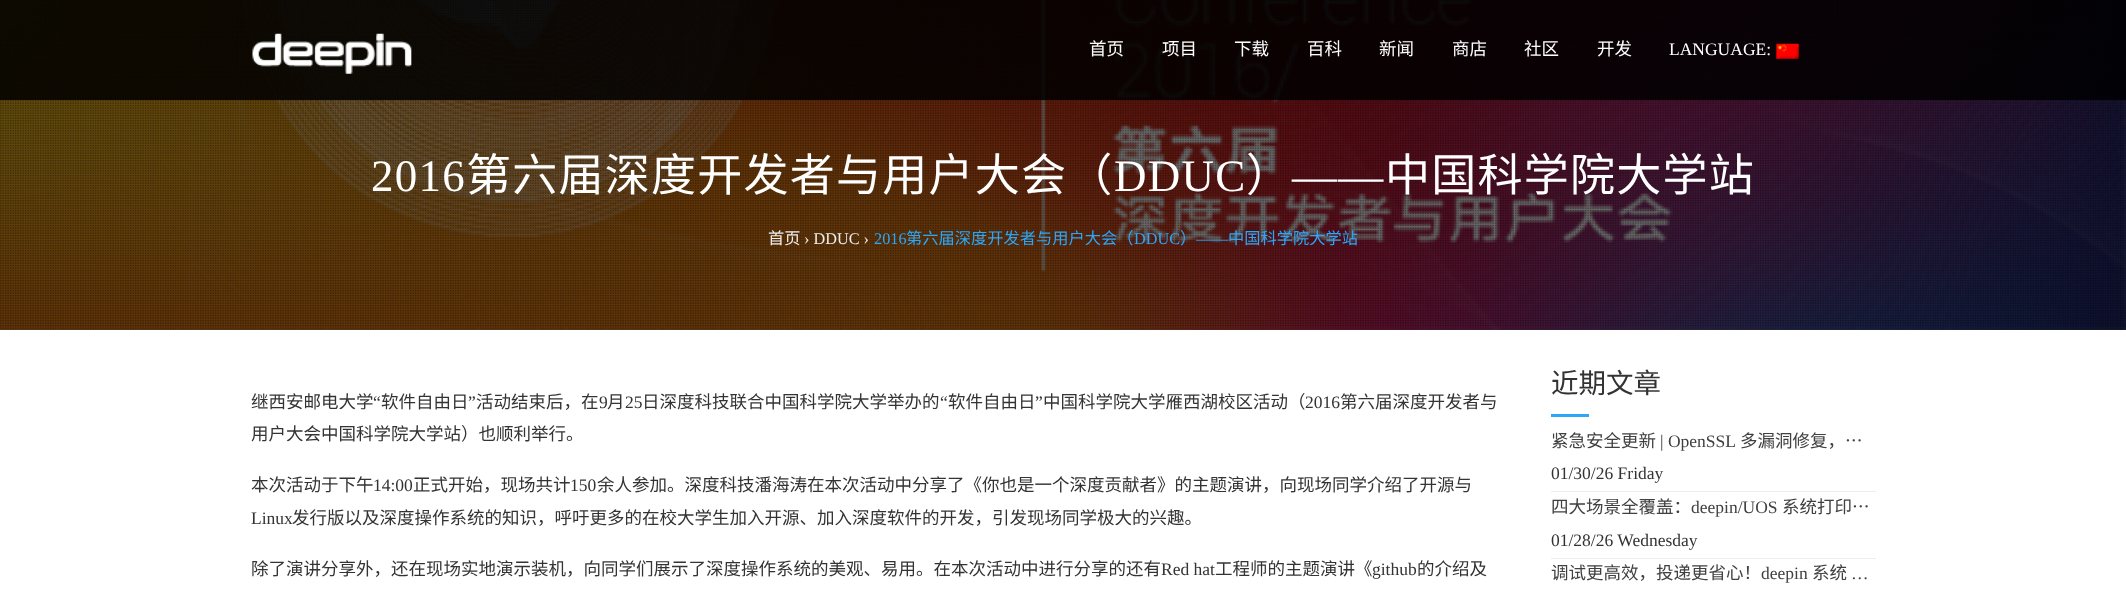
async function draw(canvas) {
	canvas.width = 2126;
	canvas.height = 599;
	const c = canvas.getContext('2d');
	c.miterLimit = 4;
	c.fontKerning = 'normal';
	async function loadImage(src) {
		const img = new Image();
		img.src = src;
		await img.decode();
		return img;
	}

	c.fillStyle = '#fff';
	c.fillRect(0, 0, 2126, 599);
	c.drawImage(await loadImage('img3.png'), 0, 0, 2126, 330);
	c.drawImage(await loadImage('img4.png'), 0, 0, 2126, 330);
	c.fillStyle = '#000000d9';
	c.fillRect(0, 0, 2126, 100);
	c.drawImage(await loadImage('img1.png'), 252, 33, 160, 41);
	c.font = '17.5px Noto Sans CJK SC';
	c.fillStyle = '#fff';
	for (const [text, x, y] of [
		['首页', 1089, 55],
		['项目', 1162, 55],
		['下载', 1234, 55],
		['百科', 1307, 55],
		['新闻', 1379, 55],
		['商店', 1452, 55],
		['社区', 1524, 55],
		['开发', 1597, 55],
	]) {
		c.fillText(text, x, y);
	}
	c.font = '17.5px Liberation Serif';
	c.fillText('LANGUAGE:', 1669, 55);
	c.drawImage(await loadImage('img2.png'), 1776, 43, 23, 16);
	c.letterSpacing = '1.25px';
	c.font = '45px Liberation Serif';
	c.fillText('2016', 371, 191);
	c.font = '45px Noto Sans CJK SC';
	c.fillText('第六届深度开发者与用户大会（', 466, 191);
	c.font = '45px Liberation Serif';
	c.fillText('DDUC', 1114, 191);
	c.font = '45px Noto Sans CJK SC';
	c.fillText('）', 1246, 191);
	c.font = '45px Liberation Serif';
	c.fillText('——', 1292, 191);
	c.font = '45px Noto Sans CJK SC';
	c.fillText('中国科学院大学站', 1385, 191);
	c.letterSpacing = '0px';
	c.font = '16.25px Noto Sans CJK SC';
	c.fillStyle = '#eee';
	c.fillText('首页', 768, 244);
	c.font = '16.25px Liberation Serif';
	c.fillText('› DDUC ›', 804, 244);
	c.fillStyle = '#2ca7f8';
	c.fillText('2016', 874, 244);
	c.font = '16.25px Noto Sans CJK SC';
	c.fillText('第六届深度开发者与用户大会（', 906, 244);
	c.font = '16.25px Liberation Serif';
	c.fillText('DDUC', 1134, 244);
	c.font = '16.25px Noto Sans CJK SC';
	c.fillText('）', 1180, 244);
	c.font = '16.25px Liberation Serif';
	c.fillText('——', 1196, 244);
	c.font = '16.25px Noto Sans CJK SC';
	c.fillText('中国科学院大学站', 1228, 244);
	c.font = '17.5px Noto Sans CJK SC';
	c.fillStyle = '#333';
	c.fillText('继西安邮电大学', 251, 408);
	c.font = '17.5px Liberation Serif';
	c.fillText('“', 373, 408);
	c.font = '17.5px Noto Sans CJK SC';
	c.fillText('软件自由日', 381, 408);
	c.font = '17.5px Liberation Serif';
	c.fillText('”', 468, 408);
	c.font = '17.5px Noto Sans CJK SC';
	c.fillText('活动结束后，在', 476, 408);
	c.font = '17.5px Liberation Serif';
	c.fillText('9', 599, 408);
	c.font = '17.5px Noto Sans CJK SC';
	c.fillText('月', 607, 408);
	c.font = '17.5px Liberation Serif';
	c.fillText('25', 625, 408);
	c.font = '17.5px Noto Sans CJK SC';
	c.fillText('日深度科技联合中国科学院大学举办的', 642, 408);
	c.font = '17.5px Liberation Serif';
	c.fillText('“', 940, 408);
	c.font = '17.5px Noto Sans CJK SC';
	c.fillText('软件自由日', 948, 408);
	c.font = '17.5px Liberation Serif';
	c.fillText('”', 1035, 408);
	c.font = '17.5px Noto Sans CJK SC';
	c.fillText('中国科学院大学雁西湖校区活动（', 1043, 408);
	c.font = '17.5px Liberation Serif';
	c.fillText('2016', 1305, 408);
	c.font = '17.5px Noto Sans CJK SC';
	for (const [text, x, y] of [
		['第六届深度开发者与', 1340, 408],
		['用户大会中国科学院大学站）也顺利举行。', 251, 440],
		['本次活动于下午', 251, 491],
	]) {
		c.fillText(text, x, y);
	}
	c.font = '17.5px Liberation Serif';
	c.fillText('14:00', 373, 491);
	c.font = '17.5px Noto Sans CJK SC';
	c.fillText('正式开始，现场共计', 413, 491);
	c.font = '17.5px Liberation Serif';
	c.fillText('150', 570, 491);
	c.font = '17.5px Noto Sans CJK SC';
	c.fillText('余人参加。深度科技潘海涛在本次活动中分享了《你也是⼀个深度贡献者》的主题演讲，向现场同学介绍了开源与', 597, 491);
	c.font = '17.5px Liberation Serif';
	c.fillText('Linux', 251, 524);
	c.font = '17.5px Noto Sans CJK SC';
	c.fillText('发行版以及深度操作系统的知识，呼吁更多的在校大学生加入开源、加入深度软件的开发，引发现场同学极大的兴趣。', 292, 524);
	c.fillText('除了演讲分享外，还在现场实地演示装机，向同学们展示了深度操作系统的美观、易用。在本次活动中进行分享的还有', 251, 575);
	c.font = '17.5px Liberation Serif';
	c.fillText('Red hat', 1161, 575);
	c.font = '17.5px Noto Sans CJK SC';
	c.fillText('工程师的主题演讲《', 1215, 575);
	c.font = '17.5px Liberation Serif';
	c.fillText('github', 1372, 575);
	c.font = '17.5px Noto Sans CJK SC';
	c.fillText('的介绍及', 1417, 575);
	c.font = '27.5px Noto Sans CJK SC';
	c.fillText('近期文章', 1551, 393);
	c.fillStyle = '#2ca7f8';
	c.fillRect(1551, 414, 38, 3);
	c.fillStyle = '#eee';
	c.fillRect(1551, 491, 325, 1);
	c.font = '17.5px Noto Sans CJK SC';
	c.fillStyle = '#404040';
	c.fillText('紧急安全更新', 1551, 447);
	c.font = '17.5px Liberation Serif';
	c.fillText('| OpenSSL', 1660, 447);
	c.font = '17.5px Noto Sans CJK SC';
	c.fillText('多漏洞修复，…', 1740, 447);
	c.font = '17.5px Liberation Serif';
	c.fillStyle = '#333';
	c.fillText('01/30/26 Friday', 1551, 479);
	c.fillStyle = '#eee';
	c.fillRect(1551, 558, 325, 1);
	c.font = '17.5px Noto Sans CJK SC';
	c.fillStyle = '#404040';
	c.fillText('四大场景全覆盖：', 1551, 513);
	c.font = '17.5px Liberation Serif';
	c.fillText('deepin/UOS', 1691, 513);
	c.font = '17.5px Noto Sans CJK SC';
	c.fillText('系统打印…', 1782, 513);
	c.font = '17.5px Liberation Serif';
	c.fillStyle = '#333';
	c.fillText('01/28/26 Wednesday', 1551, 546);
	c.font = '17.5px Noto Sans CJK SC';
	c.fillStyle = '#404040';
	c.fillText('调试更高效，投递更省心！', 1551, 579);
	c.font = '17.5px Liberation Serif';
	c.fillText('deepin', 1761, 579);
	c.font = '17.5px Noto Sans CJK SC';
	c.fillText('系统', 1812, 579);
	c.font = '17.5px Liberation Serif';
	c.fillText('…', 1851, 579);
}

draw(document.querySelector('canvas'));
